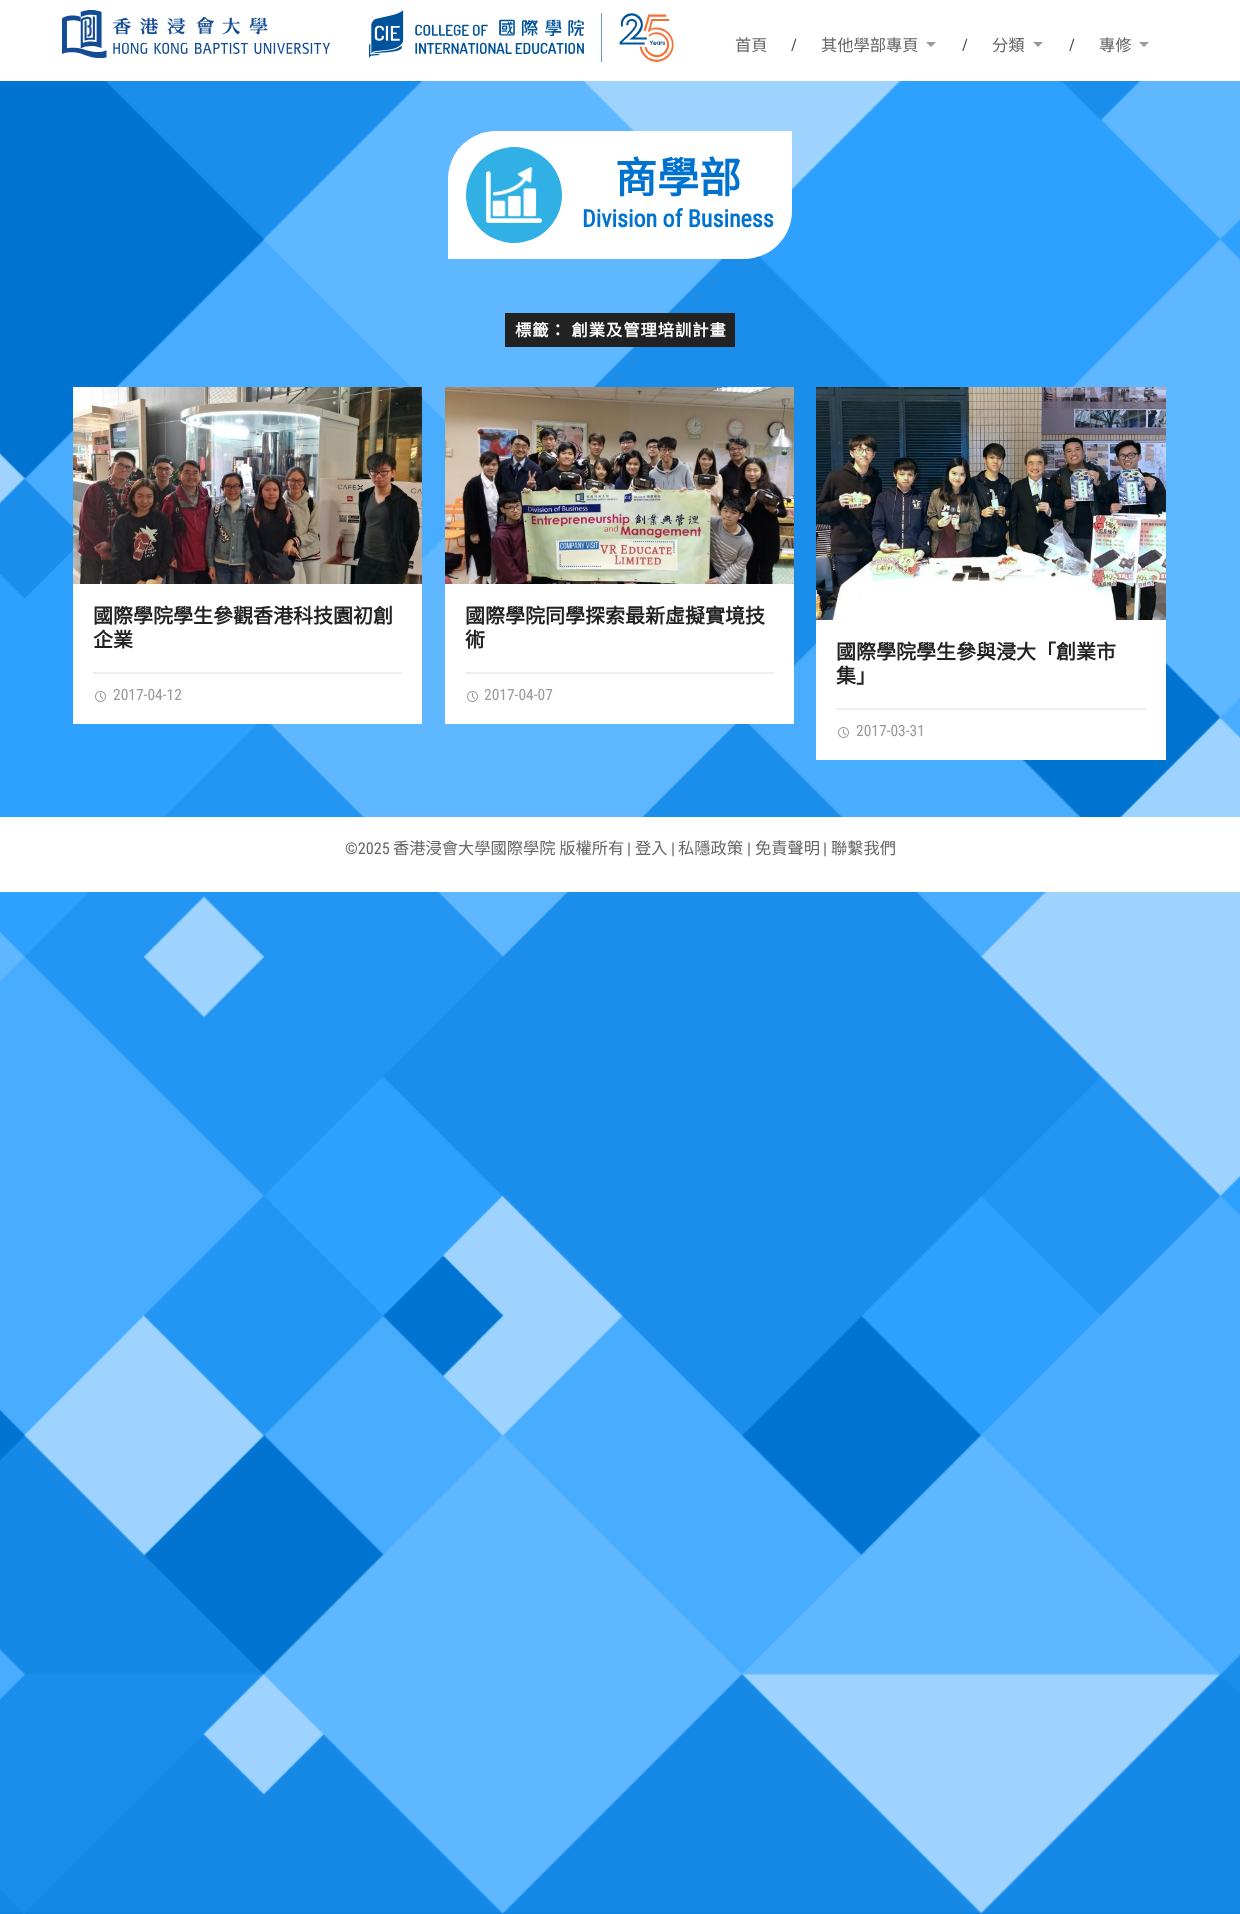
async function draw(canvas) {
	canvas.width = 1240;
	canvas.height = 1914;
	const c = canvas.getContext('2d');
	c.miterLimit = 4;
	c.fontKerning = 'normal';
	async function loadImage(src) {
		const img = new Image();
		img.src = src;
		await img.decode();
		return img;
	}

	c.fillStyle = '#fff';
	c.fillRect(0, 0, 1240, 1914);
	c.drawImage(await loadImage('img1.png'), 0, 81, 1240, 1833);
	c.drawImage(await loadImage('img2.png'), 62, 10, 268, 48);
	c.drawImage(await loadImage('img3.png'), 369, 10, 305, 52);
	c.font = '16.25px Noto Sans CJK HK';
	c.fillStyle = '#666';
	c.fillText('首頁', 735, 51);
	c.font = '16px Roboto Condensed';
	c.fillStyle = '#444';
	c.fillText('/', 791, 50);
	c.font = '16.25px Noto Sans CJK HK';
	c.fillStyle = '#666';
	c.fillText('其他學部專頁', 821, 51);
	c.fillStyle = '#999';
	c.beginPath();
	c.moveTo(926, 42);
	c.lineTo(936, 42);
	c.lineTo(931, 47);
	c.closePath();
	c.fill();
	c.font = '16px Roboto Condensed';
	c.fillStyle = '#444';
	c.fillText('/', 962, 50);
	c.font = '16.25px Noto Sans CJK HK';
	c.fillStyle = '#666';
	c.fillText('分類', 992, 51);
	c.fillStyle = '#999';
	c.beginPath();
	c.moveTo(1033, 42);
	c.lineTo(1043, 42);
	c.lineTo(1038, 47);
	c.closePath();
	c.fill();
	c.font = '16px Roboto Condensed';
	c.fillStyle = '#444';
	c.fillText('/', 1069, 50);
	c.font = '16.25px Noto Sans CJK HK';
	c.fillStyle = '#666';
	c.fillText('專修', 1099, 51);
	c.fillStyle = '#999';
	c.beginPath();
	c.moveTo(1139, 42);
	c.lineTo(1149, 42);
	c.lineTo(1144, 47);
	c.closePath();
	c.fill();
	c.fillStyle = '#fff';
	c.beginPath();
	c.roundRect(448, 131, 344, 128, [48, 0, 48, 0]);
	c.fill();
	c.drawImage(await loadImage('img4.png'), 466, 147, 96, 96);
	c.font = 'bold 42px Noto Sans CJK HK';
	c.fillStyle = '#0072cf';
	c.fillText('商學部', 615, 193);
	c.font = 'bold 24px Roboto Condensed';
	c.fillText('Division of Business', 582, 227);
	c.fillStyle = '#222';
	c.fillRect(505, 313, 230, 34);
	c.letterSpacing = '1px';
	c.font = 'bold 16.25px Noto Sans CJK HK';
	c.fillStyle = '#fff';
	c.fillText('標籤： 創業及管理培訓計畫', 515, 336);
	c.fillRect(73, 584, 349, 140);
	c.drawImage(await loadImage('img5.png'), 73, 387, 349, 197);
	c.letterSpacing = '0px';
	c.font = 'bold 20px Noto Sans CJK HK';
	c.fillStyle = '#222';
	c.fillText('國際學院學生參觀香港科技園初創', 93, 623);
	c.fillText('企業', 93, 647);
	c.fillStyle = '#eee';
	c.fillRect(93, 672, 309, 2);
	c.drawImage(await loadImage('img6.png'), 95, 691, 11, 11);
	c.font = '15.5px Roboto Condensed';
	c.fillStyle = '#999';
	c.fillText('2017-04-12', 113, 700);
	c.fillStyle = '#fff';
	c.fillRect(445, 584, 349, 140);
	c.drawImage(await loadImage('img7.png'), 445, 387, 349, 197);
	c.font = 'bold 20px Noto Sans CJK HK';
	c.fillStyle = '#222';
	c.fillText('國際學院同學探索最新虛擬實境技', 465, 623);
	c.fillText('術', 465, 647);
	c.fillStyle = '#eee';
	c.fillRect(465, 672, 309, 2);
	c.drawImage(await loadImage('img6.png'), 467, 691, 11, 11);
	c.font = '15.5px Roboto Condensed';
	c.fillStyle = '#999';
	c.fillText('2017-04-07', 484, 700);
	c.fillStyle = '#fff';
	c.fillRect(816, 620, 350, 140);
	c.drawImage(await loadImage('img8.png'), 816, 387, 350, 233);
	c.font = 'bold 20px Noto Sans CJK HK';
	c.fillStyle = '#222';
	c.fillText('國際學院學生參與浸大「創業市', 836, 659);
	c.fillText('集」', 836, 683);
	c.fillStyle = '#eee';
	c.fillRect(836, 708, 310, 2);
	c.drawImage(await loadImage('img6.png'), 838, 727, 11, 11);
	c.font = '15.5px Roboto Condensed';
	c.fillStyle = '#999';
	c.fillText('2017-03-31', 856, 736);
	c.fillStyle = '#fff';
	c.fillRect(0, 817, 1240, 75);
	c.font = '16.25px Roboto Condensed';
	c.fillStyle = '#666';
	c.fillText('©2025', 345, 854);
	c.font = '16.25px Noto Sans CJK HK';
	c.fillText('香港浸會大學國際學院 版權所有', 393, 854);
	c.font = '16.25px Roboto Condensed';
	c.fillText('|', 627, 854);
	c.font = '16.25px Noto Sans CJK HK';
	c.fillText('登入', 635, 854);
	c.font = '16.25px Roboto Condensed';
	c.fillText('|', 671, 854);
	c.font = '16.25px Noto Sans CJK HK';
	c.fillText('私隱政策', 678, 854);
	c.font = '16.25px Roboto Condensed';
	c.fillText('|', 747, 854);
	c.font = '16.25px Noto Sans CJK HK';
	c.fillText('免責聲明', 755, 854);
	c.font = '16.25px Roboto Condensed';
	c.fillText('|', 823, 854);
	c.font = '16.25px Noto Sans CJK HK';
	c.fillText('聯繫我們', 831, 854);
}

draw(document.querySelector('canvas'));
